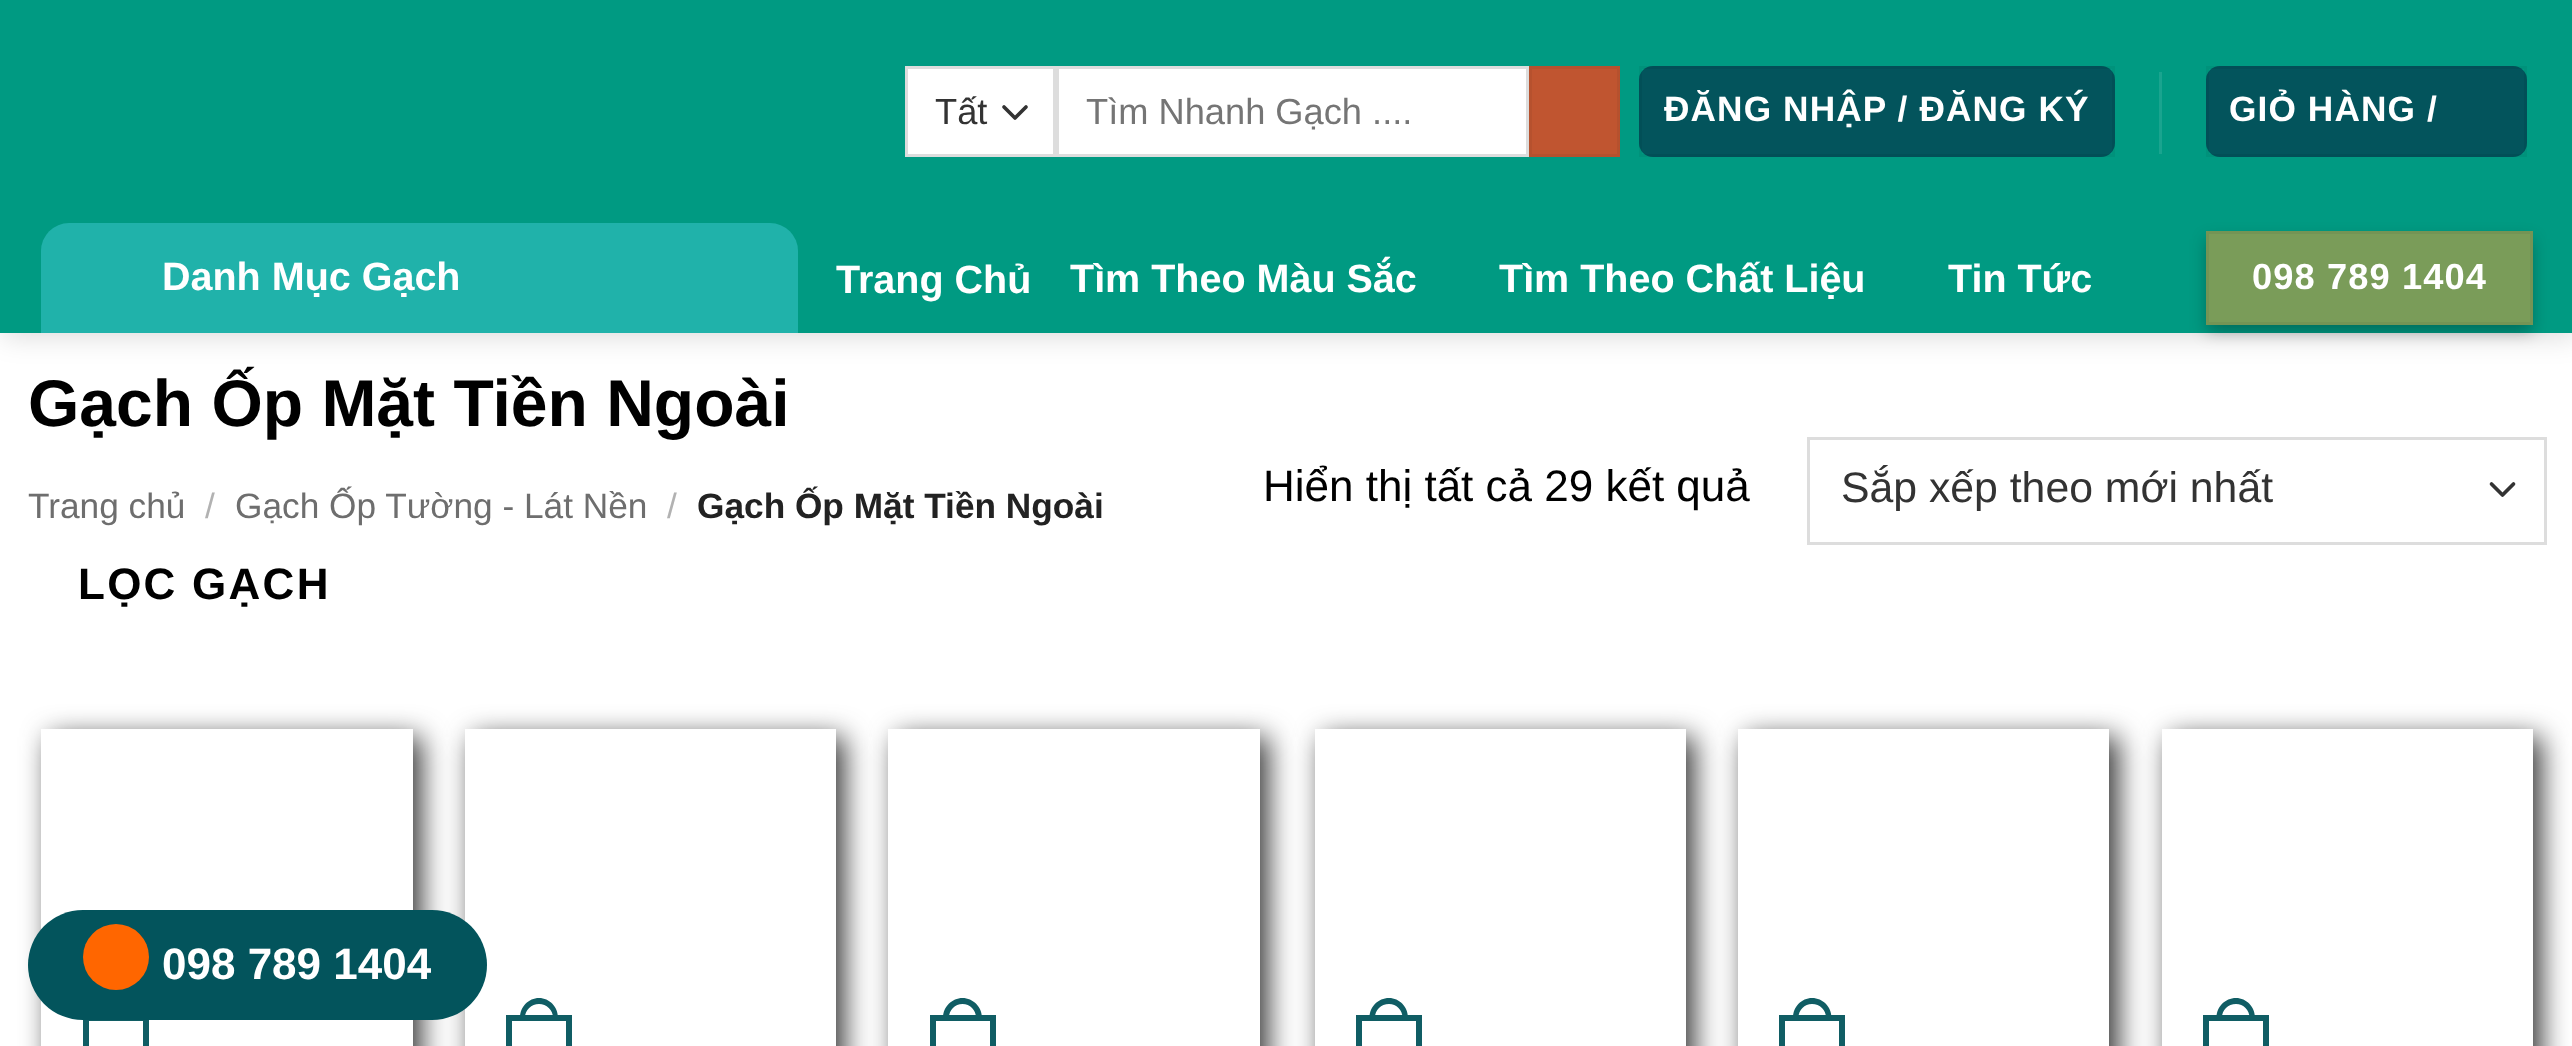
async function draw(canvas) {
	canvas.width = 2572;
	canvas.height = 1046;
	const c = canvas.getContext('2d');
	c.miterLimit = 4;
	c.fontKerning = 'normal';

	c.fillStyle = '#fff';
	c.fillRect(0, 0, 2572, 1046);
	c.fillStyle = '#00000026';
	c.filter = 'blur(14px)';
	c.beginPath();
	c.rect(3, 3, 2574, 333);
	c.fill();
	c.filter = 'none';
	c.fillStyle = '#009a82';
	c.fillRect(0, 0, 2572, 333);
	c.fillStyle = '#fff';
	c.fillRect(908, 69, 145, 85);
	c.beginPath();
	c.moveTo(1004, 107);
	c.lineTo(1015, 118);
	c.lineTo(1026, 107);
	c.strokeStyle = '#333';
	c.lineWidth = 3.7;
	c.lineCap = 'round';
	c.lineJoin = 'round';
	c.stroke();
	c.strokeStyle = '#ddd';
	c.lineWidth = 3;
	c.lineJoin = 'miter';
	c.strokeRect(906.5, 67.5, 148, 88);
	c.font = '36.25px Liberation Sans';
	c.fillStyle = '#333';
	c.fillText('Tất', 935, 124);
	c.fillStyle = '#fff';
	c.beginPath();
	c.rect(1057.5, 67.5, 470, 88);
	c.fill();
	c.stroke();
	c.fillStyle = '#757575';
	c.fillText('Tìm Nhanh Gạch ....', 1086, 124);
	c.fillStyle = '#c05530';
	c.beginPath();
	c.rect(1530.5, 67.5, 88, 88);
	c.fill();
	c.strokeStyle = '#b6512e';
	c.stroke();
	c.fillStyle = '#03545c';
	c.beginPath();
	c.roundRect(1639, 66, 476, 91, 14);
	c.fill();
	c.strokeStyle = '#0000000d';
	c.strokeRect(1640.5, 67.5, 473, 88);
	c.letterSpacing = '1.1px';
	c.font = 'bold 35.25px Liberation Sans';
	c.fillStyle = '#fff';
	c.fillText('ĐĂNG NHẬP / ĐĂNG KÝ', 1664, 121);
	c.fillStyle = '#1aa48f';
	c.fillRect(2159, 72, 3, 82);
	c.fillStyle = '#03545c';
	c.beginPath();
	c.roundRect(2206, 66, 321, 91, 14);
	c.fill();
	c.strokeRect(2207.5, 67.5, 318, 88);
	c.fillStyle = '#fff';
	c.fillText('GIỎ HÀNG /', 2229, 121);
	c.fillStyle = '#20b2aa';
	c.beginPath();
	c.roundRect(41, 223, 757, 110, [28, 28, 0, 0]);
	c.fill();
	c.letterSpacing = '0px';
	c.font = 'bold 39.5px Liberation Sans';
	c.fillStyle = '#fff';
	for (const [text, x, y] of [
		['Danh Mục Gạch', 162, 290],
		['Trang Chủ', 836, 293],
		['Tìm Theo Màu Sắc', 1070, 292],
		['Tìm Theo Chất Liệu', 1499, 292],
		['Tin Tức', 1948, 292],
	]) {
		c.fillText(text, x, y);
	}
	c.fillStyle = '#0000003b';
	c.filter = 'blur(8px)';
	c.beginPath();
	c.rect(2206, 239, 327, 94);
	c.fill();
	c.filter = 'none';
	c.fillStyle = '#00000029';
	c.filter = 'blur(8px)';
	c.beginPath();
	c.rect(2217, 250, 305, 72);
	c.fill();
	c.filter = 'none';
	c.fillStyle = '#7a9c59';
	c.beginPath();
	c.rect(2207.5, 232.5, 324, 91);
	c.fill();
	c.strokeStyle = '#749455';
	c.stroke();
	c.letterSpacing = '1.1px';
	c.font = 'bold 36.25px Liberation Sans';
	c.fillStyle = '#fff';
	c.fillText('098 789 1404', 2252, 289);
	c.letterSpacing = '0px';
	c.font = 'bold 66px Liberation Sans';
	c.fillStyle = '#000';
	c.fillText('Gạch Ốp Mặt Tiền Ngoài', 28, 426);
	c.font = '35.25px Liberation Sans';
	c.fillStyle = '#6e6e6e';
	c.fillText('Trang chủ', 28, 518);
	c.fillStyle = '#b2b2b2';
	c.fillText('/', 205, 518);
	c.fillStyle = '#6e6e6e';
	c.fillText('Gạch Ốp Tường - Lát Nền', 235, 518);
	c.fillStyle = '#b2b2b2';
	c.fillText('/', 667, 518);
	c.font = 'bold 35.25px Liberation Sans';
	c.fillStyle = '#222';
	c.fillText('Gạch Ốp Mặt Tiền Ngoài', 697, 518);
	c.letterSpacing = '2.25px';
	c.font = 'bold 44px Liberation Sans';
	c.fillStyle = '#000';
	c.fillText('LỌC GẠCH', 78, 599);
	c.letterSpacing = '0px';
	c.font = '44px Liberation Sans';
	c.fillText('Hiển thị tất cả 29 kết quả', 1263, 501);
	c.beginPath();
	c.moveTo(2491.5, 484);
	c.lineTo(2502.5, 495);
	c.lineTo(2513.5, 484);
	c.strokeStyle = '#333';
	c.lineWidth = 3.7;
	c.lineJoin = 'round';
	c.stroke();
	c.strokeStyle = '#ddd';
	c.lineWidth = 3;
	c.lineJoin = 'miter';
	c.strokeRect(1808.5, 438.5, 737, 105);
	c.font = '42.75px Liberation Sans';
	c.fillStyle = '#333';
	c.fillText('Sắp xếp theo mới nhất', 1841, 502);
	c.save();
	c.beginPath();
	c.moveTo(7, 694);
	c.lineTo(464, 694);
	c.lineTo(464, 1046);
	c.lineTo(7, 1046);
	c.closePath();
	c.moveTo(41, 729);
	c.lineTo(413, 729);
	c.lineTo(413, 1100);
	c.lineTo(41, 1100);
	c.closePath();
	c.clip('evenodd');
	c.filter = 'blur(14px)';
	c.beginPath();
	c.rect(50, 737, 371, 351);
	c.fill();
	c.filter = 'none';
	c.restore();
	c.strokeStyle = '#105d64';
	c.lineWidth = 6;
	c.strokeRect(86, 1018, 60, 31);
	c.save();
	c.beginPath();
	c.moveTo(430, 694);
	c.lineTo(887, 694);
	c.lineTo(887, 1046);
	c.lineTo(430, 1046);
	c.closePath();
	c.moveTo(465, 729);
	c.lineTo(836, 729);
	c.lineTo(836, 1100);
	c.lineTo(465, 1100);
	c.closePath();
	c.clip('evenodd');
	c.filter = 'blur(14px)';
	c.beginPath();
	c.rect(473, 737, 371, 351);
	c.fill();
	c.filter = 'none';
	c.restore();
	c.strokeRect(509, 1018, 60, 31);
	c.fillStyle = '#105d64';
	c.beginPath();
	c.moveTo(539, 998);
	c.bezierCurveTo(549.5, 998, 558, 1007, 558, 1017.5);
	c.lineTo(558, 1020);
	c.lineTo(520, 1020);
	c.lineTo(520, 1017.5);
	c.bezierCurveTo(520, 1007, 528.5, 998, 539, 998);
	c.closePath();
	c.moveTo(539, 1004);
	c.bezierCurveTo(546.5, 1004, 553, 1010, 553, 1017.5);
	c.lineTo(553, 1020);
	c.lineTo(525, 1020);
	c.lineTo(525, 1017.5);
	c.bezierCurveTo(525, 1010, 531.5, 1004, 539, 1004);
	c.closePath();
	c.fill('evenodd');
	c.save();
	c.beginPath();
	c.moveTo(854, 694);
	c.lineTo(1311, 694);
	c.lineTo(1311, 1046);
	c.lineTo(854, 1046);
	c.closePath();
	c.moveTo(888, 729);
	c.lineTo(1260, 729);
	c.lineTo(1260, 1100);
	c.lineTo(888, 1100);
	c.closePath();
	c.clip('evenodd');
	c.fillStyle = '#333';
	c.filter = 'blur(14px)';
	c.beginPath();
	c.rect(897, 737, 371, 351);
	c.fill();
	c.filter = 'none';
	c.restore();
	c.strokeRect(933, 1018, 60, 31);
	c.beginPath();
	c.moveTo(962.5, 998);
	c.bezierCurveTo(973, 998, 982, 1007, 982, 1017.5);
	c.lineTo(982, 1020);
	c.lineTo(943, 1020);
	c.lineTo(943, 1017.5);
	c.bezierCurveTo(943, 1007, 952, 998, 962.5, 998);
	c.closePath();
	c.moveTo(962.5, 1004);
	c.bezierCurveTo(970, 1004, 976, 1010, 976, 1017.5);
	c.lineTo(976, 1020);
	c.lineTo(949, 1020);
	c.lineTo(949, 1017.5);
	c.bezierCurveTo(949, 1010, 955, 1004, 962.5, 1004);
	c.closePath();
	c.fill('evenodd');
	c.save();
	c.beginPath();
	c.moveTo(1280, 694);
	c.lineTo(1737, 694);
	c.lineTo(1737, 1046);
	c.lineTo(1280, 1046);
	c.closePath();
	c.moveTo(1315, 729);
	c.lineTo(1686, 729);
	c.lineTo(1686, 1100);
	c.lineTo(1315, 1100);
	c.closePath();
	c.clip('evenodd');
	c.fillStyle = '#333';
	c.filter = 'blur(14px)';
	c.beginPath();
	c.rect(1323, 737, 371, 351);
	c.fill();
	c.filter = 'none';
	c.restore();
	c.strokeRect(1359, 1018, 60, 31);
	c.beginPath();
	c.moveTo(1389, 998);
	c.bezierCurveTo(1399.5, 998, 1408, 1007, 1408, 1017.5);
	c.lineTo(1408, 1020);
	c.lineTo(1369.5, 1020);
	c.lineTo(1369.5, 1017.5);
	c.bezierCurveTo(1369.5, 1007, 1378, 998, 1389, 998);
	c.closePath();
	c.moveTo(1389, 1004);
	c.bezierCurveTo(1396.5, 1004, 1402.5, 1010, 1402.5, 1017.5);
	c.lineTo(1402.5, 1020);
	c.lineTo(1375, 1020);
	c.lineTo(1375, 1017.5);
	c.bezierCurveTo(1375, 1010, 1381, 1004, 1389, 1004);
	c.closePath();
	c.fill('evenodd');
	c.save();
	c.beginPath();
	c.moveTo(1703, 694);
	c.lineTo(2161, 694);
	c.lineTo(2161, 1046);
	c.lineTo(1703, 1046);
	c.closePath();
	c.moveTo(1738, 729);
	c.lineTo(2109, 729);
	c.lineTo(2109, 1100);
	c.lineTo(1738, 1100);
	c.closePath();
	c.clip('evenodd');
	c.fillStyle = '#333';
	c.filter = 'blur(14px)';
	c.beginPath();
	c.rect(1746, 737, 372, 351);
	c.fill();
	c.filter = 'none';
	c.restore();
	c.strokeRect(1782, 1018, 60, 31);
	c.beginPath();
	c.moveTo(1812, 998);
	c.bezierCurveTo(1823, 998, 1831.5, 1007, 1831.5, 1017.5);
	c.lineTo(1831.5, 1020);
	c.lineTo(1793, 1020);
	c.lineTo(1793, 1017.5);
	c.bezierCurveTo(1793, 1007, 1801.5, 998, 1812, 998);
	c.closePath();
	c.moveTo(1812, 1004);
	c.bezierCurveTo(1820, 1004, 1826, 1010, 1826, 1017.5);
	c.lineTo(1826, 1020);
	c.lineTo(1798.5, 1020);
	c.lineTo(1798.5, 1017.5);
	c.bezierCurveTo(1798.5, 1010, 1804.5, 1004, 1812, 1004);
	c.closePath();
	c.fill('evenodd');
	c.save();
	c.beginPath();
	c.moveTo(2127, 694);
	c.lineTo(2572, 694);
	c.lineTo(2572, 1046);
	c.lineTo(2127, 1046);
	c.closePath();
	c.moveTo(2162, 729);
	c.lineTo(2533, 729);
	c.lineTo(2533, 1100);
	c.lineTo(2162, 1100);
	c.closePath();
	c.clip('evenodd');
	c.fillStyle = '#333';
	c.filter = 'blur(14px)';
	c.beginPath();
	c.rect(2170, 737, 371, 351);
	c.fill();
	c.filter = 'none';
	c.restore();
	c.strokeRect(2206, 1018, 60, 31);
	c.beginPath();
	c.moveTo(2236, 998);
	c.bezierCurveTo(2246.5, 998, 2255, 1007, 2255, 1017.5);
	c.lineTo(2255, 1020);
	c.lineTo(2216.5, 1020);
	c.lineTo(2216.5, 1017.5);
	c.bezierCurveTo(2216.5, 1007, 2225, 998, 2236, 998);
	c.closePath();
	c.moveTo(2236, 1004);
	c.bezierCurveTo(2243.5, 1004, 2249.5, 1010, 2249.5, 1017.5);
	c.lineTo(2249.5, 1020);
	c.lineTo(2222, 1020);
	c.lineTo(2222, 1017.5);
	c.bezierCurveTo(2222, 1010, 2228, 1004, 2236, 1004);
	c.closePath();
	c.fill('evenodd');
	c.fillStyle = '#03545c';
	c.beginPath();
	c.roundRect(28, 910, 459, 110, 55);
	c.fill();
	c.fillStyle = '#f60';
	c.beginPath();
	c.arc(116, 957, 33, 0, 2 * Math.PI);
	c.fill();
	c.font = 'bold 44px Liberation Sans';
	c.fillStyle = '#fff';
	c.fillText('098 789 1404', 162, 979);
}

draw(document.querySelector('canvas'));
